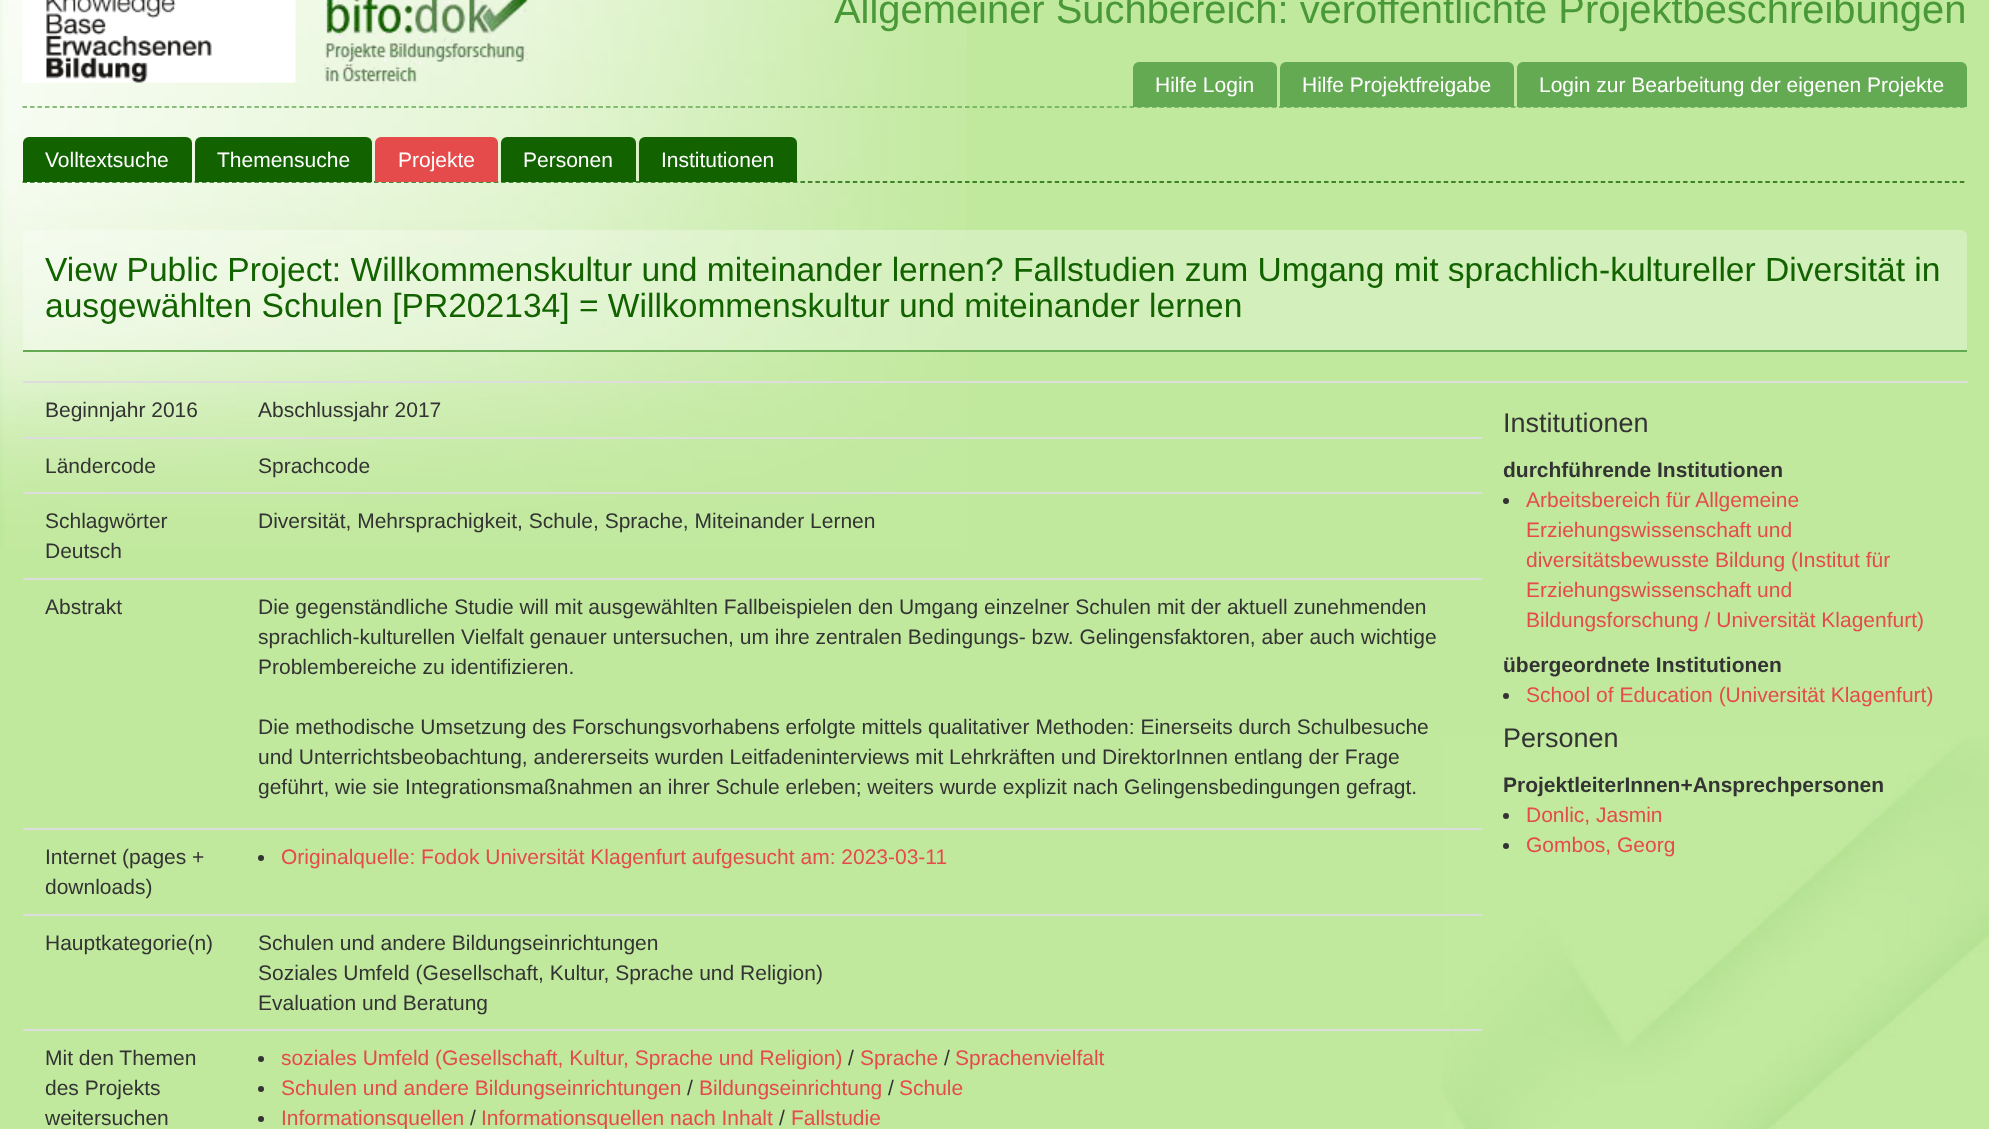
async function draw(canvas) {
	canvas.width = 1989;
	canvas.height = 1129;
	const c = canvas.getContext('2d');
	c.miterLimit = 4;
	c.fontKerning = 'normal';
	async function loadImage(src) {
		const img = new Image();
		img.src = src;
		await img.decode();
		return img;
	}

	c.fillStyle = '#c1e99e';
	c.fillRect(0, 0, 1989, 1129);
	c.drawImage(await loadImage('img1.png'), 1442, 737, 547, 392);
	c.drawImage(await loadImage('img2.png'), 0, 0, 967, 550);
	c.beginPath();
	c.moveTo(22.5, 107);
	c.lineTo(1966.5, 107);
	c.strokeStyle = '#64aa53';
	c.lineWidth = 1.5;
	c.setLineDash([4.5, 2.98]);
	c.stroke();
	c.drawImage(await loadImage('img3.png'), 22, 0, 274, 83);
	c.drawImage(await loadImage('img4.png'), 324, 0, 204, 84);
	c.font = '39.9px Liberation Sans';
	c.fillStyle = '#4a9938';
	c.fillText('Allgemeiner Suchbereich: veröffentlichte Projektbeschreibungen', 834, 23);
	c.beginPath();
	c.moveTo(22.5, 182);
	c.lineTo(1966.5, 182);
	c.strokeStyle = '#126300';
	c.stroke();
	c.fillStyle = '#64aa53';
	c.beginPath();
	c.roundRect(1133, 62, 144, 45, [6, 6, 0, 0]);
	c.fill();
	c.font = '21px Liberation Sans';
	c.fillStyle = '#fff';
	c.fillText('Hilfe Login', 1155, 92);
	c.fillStyle = '#64aa53';
	c.beginPath();
	c.roundRect(1280, 62, 234, 45, [6, 6, 0, 0]);
	c.fill();
	c.fillStyle = '#fff';
	c.fillText('Hilfe Projektfreigabe', 1302, 92);
	c.fillStyle = '#64aa53';
	c.beginPath();
	c.roundRect(1517, 62, 450, 45, [6, 6, 0, 0]);
	c.fill();
	c.fillStyle = '#fff';
	c.fillText('Login zur Bearbeitung der eigenen Projekte', 1539, 92);
	c.fillStyle = '#126300';
	c.beginPath();
	c.roundRect(23, 137, 169, 45, [6, 6, 0, 0]);
	c.fill();
	c.fillStyle = '#fff';
	c.fillText('Volltextsuche', 45, 167);
	c.fillStyle = '#126300';
	c.beginPath();
	c.roundRect(195, 137, 177, 45, [6, 6, 0, 0]);
	c.fill();
	c.fillStyle = '#fff';
	c.fillText('Themensuche', 217, 167);
	c.fillStyle = '#e54b4b';
	c.beginPath();
	c.roundRect(375, 137, 123, 45, [6, 6, 0, 0]);
	c.fill();
	c.fillStyle = '#fff';
	c.fillText('Projekte', 398, 167);
	c.fillStyle = '#126300';
	c.beginPath();
	c.roundRect(501, 137, 135, 45, [6, 6, 0, 0]);
	c.fill();
	c.fillStyle = '#fff';
	c.fillText('Personen', 523, 167);
	c.fillStyle = '#126300';
	c.beginPath();
	c.roundRect(639, 137, 158, 45, [6, 6, 0, 0]);
	c.fill();
	c.fillStyle = '#fff';
	c.fillText('Institutionen', 661, 167);
	c.fillStyle = '#ffffff4d';
	c.beginPath();
	c.roundRect(23, 230, 1944, 121, [6, 6, 0, 0]);
	c.fill();
	c.fillStyle = '#64aa53';
	c.fillRect(23, 350, 1944, 2);
	c.font = '33.6px Liberation Sans';
	c.fillStyle = '#126300';
	c.fillText('View Public Project: Willkommenskultur und miteinander lernen? Fallstudien zum Umgang mit sprachlich-kultureller Diversität in', 45, 281);
	c.fillText('ausgewählten Schulen [PR202134] = Willkommenskultur und miteinander lernen', 45, 317);
	c.font = '21px Liberation Sans';
	c.fillStyle = '#333';
	c.fillText('Beginnjahr 2016', 45, 417);
	c.fillText('Abschlussjahr 2017', 258, 417);
	c.fillStyle = '#ddd';
	c.fillRect(23, 381, 1945, 2);
	c.font = '27px Liberation Sans';
	c.fillStyle = '#333';
	c.fillText('Institutionen', 1503, 432);
	c.font = 'bold 21px Liberation Sans';
	c.fillText('durchführende Institutionen', 1503, 477);
	c.beginPath();
	c.arc(1506, 501, 3, 0, 2 * Math.PI);
	c.fill();
	c.font = '21px Liberation Sans';
	c.fillStyle = '#e54b4b';
	for (const [text, x, y] of [
		['Arbeitsbereich für Allgemeine', 1526, 507],
		['Erziehungswissenschaft und', 1526, 537],
		['diversitätsbewusste Bildung (Institut für', 1526, 567],
		['Erziehungswissenschaft und', 1526, 597],
		['Bildungsforschung / Universität Klagenfurt)', 1526, 627],
	]) {
		c.fillText(text, x, y);
	}
	c.font = 'bold 21px Liberation Sans';
	c.fillStyle = '#333';
	c.fillText('übergeordnete Institutionen', 1503, 672);
	c.beginPath();
	c.arc(1506, 696, 3, 0, 2 * Math.PI);
	c.fill();
	c.font = '21px Liberation Sans';
	c.fillStyle = '#e54b4b';
	c.fillText('School of Education (Universität Klagenfurt)', 1526, 702);
	c.font = '27px Liberation Sans';
	c.fillStyle = '#333';
	c.fillText('Personen', 1503, 747);
	c.font = 'bold 21px Liberation Sans';
	c.fillText('ProjektleiterInnen+Ansprechpersonen', 1503, 792);
	c.beginPath();
	c.arc(1506, 816, 3, 0, 2 * Math.PI);
	c.fill();
	c.font = '21px Liberation Sans';
	c.fillStyle = '#e54b4b';
	c.fillText('Donlic, Jasmin', 1526, 822);
	c.fillStyle = '#333';
	c.beginPath();
	c.arc(1506, 846, 3, 0, 2 * Math.PI);
	c.fill();
	c.fillStyle = '#e54b4b';
	c.fillText('Gombos, Georg', 1526, 852);
	c.fillStyle = '#333';
	c.fillText('Ländercode', 45, 473);
	c.fillStyle = '#ddd';
	c.fillRect(23, 437, 1459, 2);
	c.fillStyle = '#333';
	for (const [text, x, y] of [
		['Sprachcode', 258, 473],
		['Schlagwörter', 45, 528],
		['Deutsch', 45, 558],
	]) {
		c.fillText(text, x, y);
	}
	c.fillStyle = '#ddd';
	c.fillRect(23, 492, 1459, 2);
	c.fillStyle = '#333';
	c.fillText('Diversität, Mehrsprachigkeit, Schule, Sprache, Miteinander Lernen', 258, 528);
	c.fillText('Abstrakt', 45, 614);
	c.fillStyle = '#ddd';
	c.fillRect(23, 578, 1459, 2);
	c.fillStyle = '#333';
	for (const [text, x, y] of [
		['Die gegenständliche Studie will mit ausgewählten Fallbeispielen den Umgang einzelner Schulen mit der aktuell zunehmenden', 258, 614],
		['sprachlich-kulturellen Vielfalt genauer untersuchen, um ihre zentralen Bedingungs- bzw. Gelingensfaktoren, aber auch wichtige', 258, 644],
		['Problembereiche zu identifizieren.', 258, 674],
		['Die methodische Umsetzung des Forschungsvorhabens erfolgte mittels qualitativer Methoden: Einerseits durch Schulbesuche', 258, 734],
		['und Unterrichtsbeobachtung, andererseits wurden Leitfadeninterviews mit Lehrkräften und DirektorInnen entlang der Frage', 258, 764],
		['geführt, wie sie Integrationsmaßnahmen an ihrer Schule erleben; weiters wurde explizit nach Gelingensbedingungen gefragt.', 258, 794],
		['Internet (pages +', 45, 864],
		['downloads)', 45, 894],
	]) {
		c.fillText(text, x, y);
	}
	c.fillStyle = '#ddd';
	c.fillRect(23, 828, 1459, 2);
	c.fillStyle = '#333';
	c.beginPath();
	c.arc(261, 858, 3, 0, 2 * Math.PI);
	c.fill();
	c.fillStyle = '#e54b4b';
	c.fillText('Originalquelle: Fodok Universität Klagenfurt aufgesucht am: 2023-03-11', 281, 864);
	c.fillStyle = '#333';
	c.fillText('Hauptkategorie(n)', 45, 950);
	c.fillStyle = '#ddd';
	c.fillRect(23, 914, 1459, 2);
	c.fillStyle = '#333';
	for (const [text, x, y] of [
		['Schulen und andere Bildungseinrichtungen', 258, 950],
		['Soziales Umfeld (Gesellschaft, Kultur, Sprache und Religion)', 258, 980],
		['Evaluation und Beratung', 258, 1010],
		['Mit den Themen', 45, 1065],
		['des Projekts', 45, 1095],
		['weitersuchen', 45, 1125],
	]) {
		c.fillText(text, x, y);
	}
	c.fillStyle = '#ddd';
	c.fillRect(23, 1029, 1459, 2);
	c.fillStyle = '#333';
	c.beginPath();
	c.arc(261, 1059, 3, 0, 2 * Math.PI);
	c.fill();
	c.fillStyle = '#e54b4b';
	c.fillText('soziales Umfeld (Gesellschaft, Kultur, Sprache und Religion)', 281, 1065);
	c.fillStyle = '#333';
	c.fillText('/', 848, 1065);
	c.fillStyle = '#e54b4b';
	c.fillText('Sprache', 860, 1065);
	c.fillStyle = '#333';
	c.fillText('/', 944, 1065);
	c.fillStyle = '#e54b4b';
	c.fillText('Sprachenvielfalt', 955, 1065);
	c.fillStyle = '#333';
	c.beginPath();
	c.arc(261, 1089, 3, 0, 2 * Math.PI);
	c.fill();
	c.fillStyle = '#e54b4b';
	c.fillText('Schulen und andere Bildungseinrichtungen', 281, 1095);
	c.fillStyle = '#333';
	c.fillText('/', 687, 1095);
	c.fillStyle = '#e54b4b';
	c.fillText('Bildungseinrichtung', 699, 1095);
	c.fillStyle = '#333';
	c.fillText('/', 888, 1095);
	c.fillStyle = '#e54b4b';
	c.fillText('Schule', 899, 1095);
	c.fillStyle = '#333';
	c.beginPath();
	c.arc(261, 1119, 3, 0, 2 * Math.PI);
	c.fill();
	c.fillStyle = '#e54b4b';
	c.fillText('Informationsquellen', 281, 1125);
	c.fillStyle = '#333';
	c.fillText('/', 470, 1125);
	c.fillStyle = '#e54b4b';
	c.fillText('Informationsquellen nach Inhalt', 481, 1125);
	c.fillStyle = '#333';
	c.fillText('/', 779, 1125);
	c.fillStyle = '#e54b4b';
	c.fillText('Fallstudie', 791, 1125);
}

draw(document.querySelector('canvas'));
